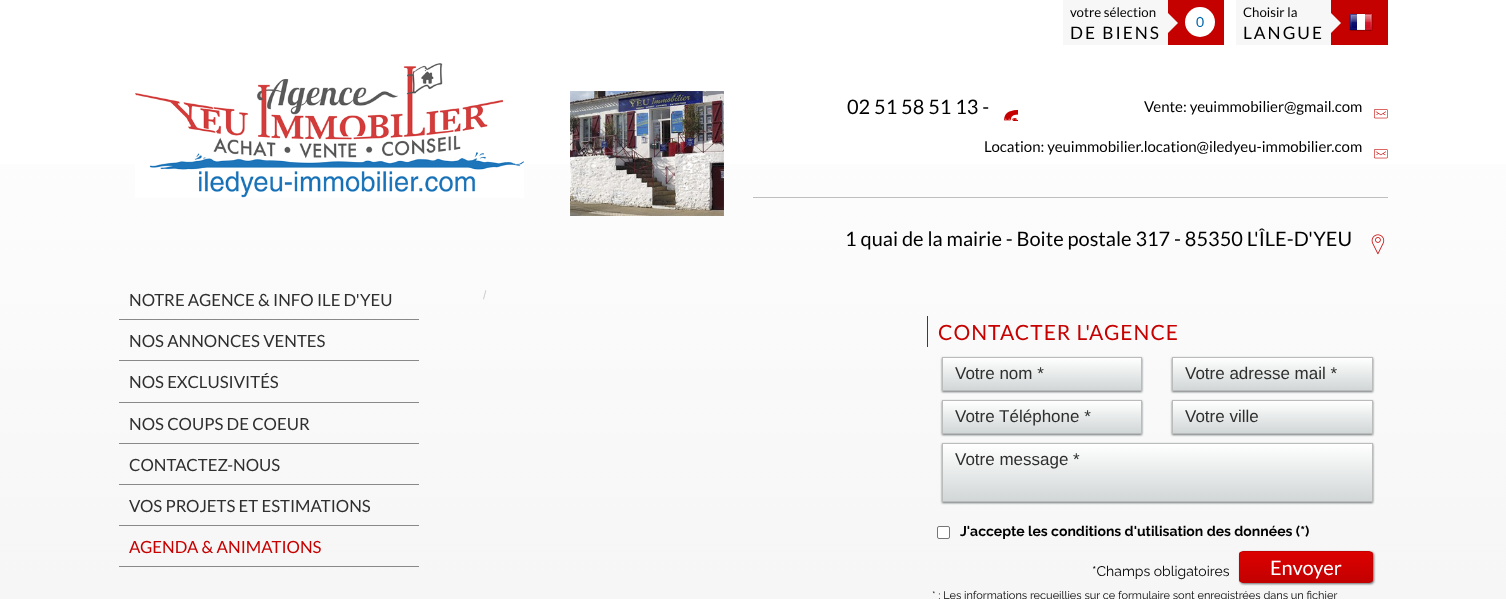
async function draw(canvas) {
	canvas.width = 1506;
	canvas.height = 599;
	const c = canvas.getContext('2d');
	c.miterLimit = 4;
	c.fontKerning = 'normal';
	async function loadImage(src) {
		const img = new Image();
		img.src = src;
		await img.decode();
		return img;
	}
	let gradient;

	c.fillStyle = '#fff';
	c.fillRect(0, 0, 1506, 599);
	gradient = c.createLinearGradient(753, 0, 753, 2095);
	gradient.addColorStop(0, '#fff');
	gradient.addColorStop(1, '#dfdfdf');
	c.fillStyle = gradient;
	c.fillRect(0, 164, 1506, 435);
	c.fillStyle = '#f7f7f7';
	c.fillRect(1063, 0, 105, 45);
	c.font = '13.25px Lato';
	c.fillStyle = '#000';
	c.fillText('votre sélection', 1070, 17);
	c.letterSpacing = '2px';
	c.font = '17.25px Lato';
	c.fillText('DE BIENS', 1070, 39);
	c.fillStyle = '#c50100';
	c.fillRect(1168, 0, 56, 45);
	c.fillStyle = '#f7f7f7';
	c.beginPath();
	c.moveTo(1168, 33);
	c.lineTo(1168, 13);
	c.lineTo(1178, 23);
	c.closePath();
	c.fill();
	c.fillStyle = '#fff';
	c.beginPath();
	c.arc(1200, 22, 15, 0, 2 * Math.PI);
	c.fill();
	c.letterSpacing = '0px';
	c.font = '14px Lato';
	c.fillStyle = '#0069ad';
	c.fillText('0', 1196, 27);
	c.fillStyle = '#f7f7f7';
	c.fillRect(1236, 0, 95, 45);
	c.font = '13.25px Lato';
	c.fillStyle = '#000';
	c.fillText('Choisir la', 1243, 17);
	c.letterSpacing = '2px';
	c.font = '17.25px Lato';
	c.fillText('LANGUE', 1243, 39);
	c.fillStyle = '#c50100';
	c.fillRect(1331, 0, 57, 45);
	c.fillStyle = '#f7f7f7';
	c.beginPath();
	c.moveTo(1331, 33);
	c.lineTo(1331, 13);
	c.lineTo(1341, 23);
	c.closePath();
	c.fill();
	c.drawImage(await loadImage('img1.png'), 1349, 13, 24, 18);
	c.drawImage(await loadImage('img2.png'), 135, 63, 389, 135);
	c.drawImage(await loadImage('img3.png'), 570, 91, 154, 125);
	c.fillStyle = '#bfbfbf';
	c.fillRect(753, 197, 635, 1);
	c.letterSpacing = '0px';
	c.font = '20px Lato';
	c.fillStyle = '#000';
	c.fillText('02 51 58 51 13 -', 847, 114);
	c.drawImage(await loadImage('img4.png'), 1004, 109, 14, 12);
	c.font = '14px Liberation Serif';
	c.fillStyle = '#db6060';
	c.fillText('....', 1004, 120);
	c.font = '15px Lato';
	c.fillStyle = '#000';
	c.fillText('Vente: yeuimmobilier@gmail.com', 1144, 112);
	c.drawImage(await loadImage('img5.png'), 1374, 109, 14, 10);
	c.fillText('Location: yeuimmobilier.location@iledyeu-immobilier.com', 984, 152);
	c.drawImage(await loadImage('img5.png'), 1374, 149, 14, 10);
	c.font = '20px Lato';
	c.fillText('1 quai de la mairie - Boite postale 317 - 85350 L\'ÎLE-D\'YEU', 845, 246);
	c.drawImage(await loadImage('img6.png'), 1371, 234, 14, 21);
	c.fillStyle = '#898989';
	c.fillRect(119, 319, 300, 1);
	c.font = '16.75px Lato';
	c.fillStyle = '#2f2f2f';
	c.fillText('NOTRE AGENCE & INFO ILE D\'YEU', 129, 306);
	c.fillStyle = '#898989';
	c.fillRect(119, 360, 300, 1);
	c.fillStyle = '#2f2f2f';
	c.fillText('NOS ANNONCES VENTES', 129, 347);
	c.fillStyle = '#898989';
	c.fillRect(119, 402, 300, 1);
	c.fillStyle = '#2f2f2f';
	c.fillText('NOS EXCLUSIVITÉS', 129, 388);
	c.fillStyle = '#898989';
	c.fillRect(119, 443, 300, 1);
	c.fillStyle = '#2f2f2f';
	c.fillText('NOS COUPS DE COEUR', 129, 430);
	c.fillStyle = '#898989';
	c.fillRect(119, 484, 300, 1);
	c.fillStyle = '#2f2f2f';
	c.fillText('CONTACTEZ-NOUS', 129, 471);
	c.fillStyle = '#898989';
	c.fillRect(119, 525, 300, 1);
	c.fillStyle = '#2f2f2f';
	c.fillText('VOS PROJETS ET ESTIMATIONS', 129, 512);
	c.fillStyle = '#898989';
	c.fillRect(119, 566, 300, 1);
	c.fillStyle = '#c60100';
	c.fillText('AGENDA & ANIMATIONS', 129, 553);
	c.font = '12px Liberation Sans';
	c.fillStyle = '#ccc';
	c.fillText('/', 483, 299);
	c.fillStyle = '#c60100';
	c.fillRect(927, 316, 1, 31);
	c.letterSpacing = '1px';
	c.font = '21px Lato';
	c.fillText('CONTACTER L\'AGENCE', 938, 340);
	c.fillStyle = '#6d7474';
	c.filter = 'blur(1px)';
	c.beginPath();
	c.rect(942, 358, 200, 34);
	c.fill();
	c.filter = 'none';
	gradient = c.createLinearGradient(1042, 358, 1042, 390);
	gradient.addColorStop(0, '#fff');
	gradient.addColorStop(1, '#d1d6d6');
	c.fillStyle = gradient;
	c.fillRect(943, 358, 198, 32);
	c.strokeStyle = '#bcbbbb';
	c.strokeRect(942.5, 357.5, 199, 33);
	c.letterSpacing = '0px';
	c.font = '17px Liberation Sans';
	c.fillStyle = '#2f2f2f';
	c.fillText('Votre nom *', 955, 379);
	c.fillStyle = '#6d7474';
	c.filter = 'blur(1px)';
	c.beginPath();
	c.rect(1172, 358, 201, 34);
	c.fill();
	c.filter = 'none';
	gradient = c.createLinearGradient(1273, 358, 1273, 390);
	gradient.addColorStop(0, '#fff');
	gradient.addColorStop(1, '#d1d6d6');
	c.fillStyle = gradient;
	c.fillRect(1173, 358, 199, 32);
	c.strokeRect(1172.5, 357.5, 200, 33);
	c.fillStyle = '#2f2f2f';
	c.fillText('Votre adresse mail *', 1185, 379);
	c.fillStyle = '#6d7474';
	c.filter = 'blur(1px)';
	c.beginPath();
	c.rect(942, 401, 200, 34);
	c.fill();
	c.filter = 'none';
	gradient = c.createLinearGradient(1042, 401, 1042, 433);
	gradient.addColorStop(0, '#fff');
	gradient.addColorStop(1, '#d1d6d6');
	c.fillStyle = gradient;
	c.fillRect(943, 401, 198, 32);
	c.strokeRect(942.5, 400.5, 199, 33);
	c.fillStyle = '#2f2f2f';
	c.fillText('Votre Téléphone *', 955, 422);
	c.fillStyle = '#6d7474';
	c.filter = 'blur(1px)';
	c.beginPath();
	c.rect(1172, 401, 201, 34);
	c.fill();
	c.filter = 'none';
	gradient = c.createLinearGradient(1273, 401, 1273, 433);
	gradient.addColorStop(0, '#fff');
	gradient.addColorStop(1, '#d1d6d6');
	c.fillStyle = gradient;
	c.fillRect(1173, 401, 199, 32);
	c.strokeRect(1172.5, 400.5, 200, 33);
	c.fillStyle = '#2f2f2f';
	c.fillText('Votre ville', 1185, 422);
	c.fillStyle = '#6d7474';
	c.filter = 'blur(1px)';
	c.beginPath();
	c.rect(942, 444, 431, 59);
	c.fill();
	c.filter = 'none';
	gradient = c.createLinearGradient(1158, 444, 1158, 501);
	gradient.addColorStop(0, '#fff');
	gradient.addColorStop(1, '#d1d6d6');
	c.fillStyle = gradient;
	c.fillRect(943, 444, 429, 57);
	c.strokeRect(942.5, 443.5, 430, 58);
	c.fillStyle = '#2f2f2f';
	c.fillText('Votre message *', 955, 465);
	c.fillStyle = '#fff';
	c.beginPath();
	c.roundRect(937.5, 526.5, 12, 12, 1.5);
	c.fill();
	c.strokeStyle = '#767676';
	c.stroke();
	c.font = 'bold 14px Raleway';
	c.fillStyle = '#000';
	c.fillText('J\'accepte les conditions d\'utilisation des données (*)', 960, 536);
	c.font = '14px Raleway';
	c.fillText('*Champs obligatoires', 1092, 576);
	c.fillStyle = '#686868';
	c.filter = 'blur(1px)';
	c.beginPath();
	c.roundRect(1240, 552, 134, 32, 4);
	c.fill();
	c.filter = 'none';
	c.save();
	c.beginPath();
	c.roundRect(1239, 551, 134, 32, 4);
	c.clip();
	gradient = c.createLinearGradient(1306, 552, 1306, 582);
	gradient.addColorStop(0, '#db0100');
	gradient.addColorStop(1, '#c30100');
	c.fillStyle = gradient;
	c.fillRect(1239, 552, 134, 30);
	c.restore();
	c.beginPath();
	c.roundRect(1239.5, 551.5, 133, 31, 3.5);
	c.strokeStyle = '#c30100';
	c.stroke();
	c.font = '20px Lato';
	c.fillStyle = '#fff';
	c.fillText('Envoyer', 1270, 575);
	c.font = '11px Raleway';
	c.fillStyle = '#000';
	c.fillText('* : Les informations recueillies sur ce formulaire sont enregistrées dans un fichier', 932, 599);
}

draw(document.querySelector('canvas'));
